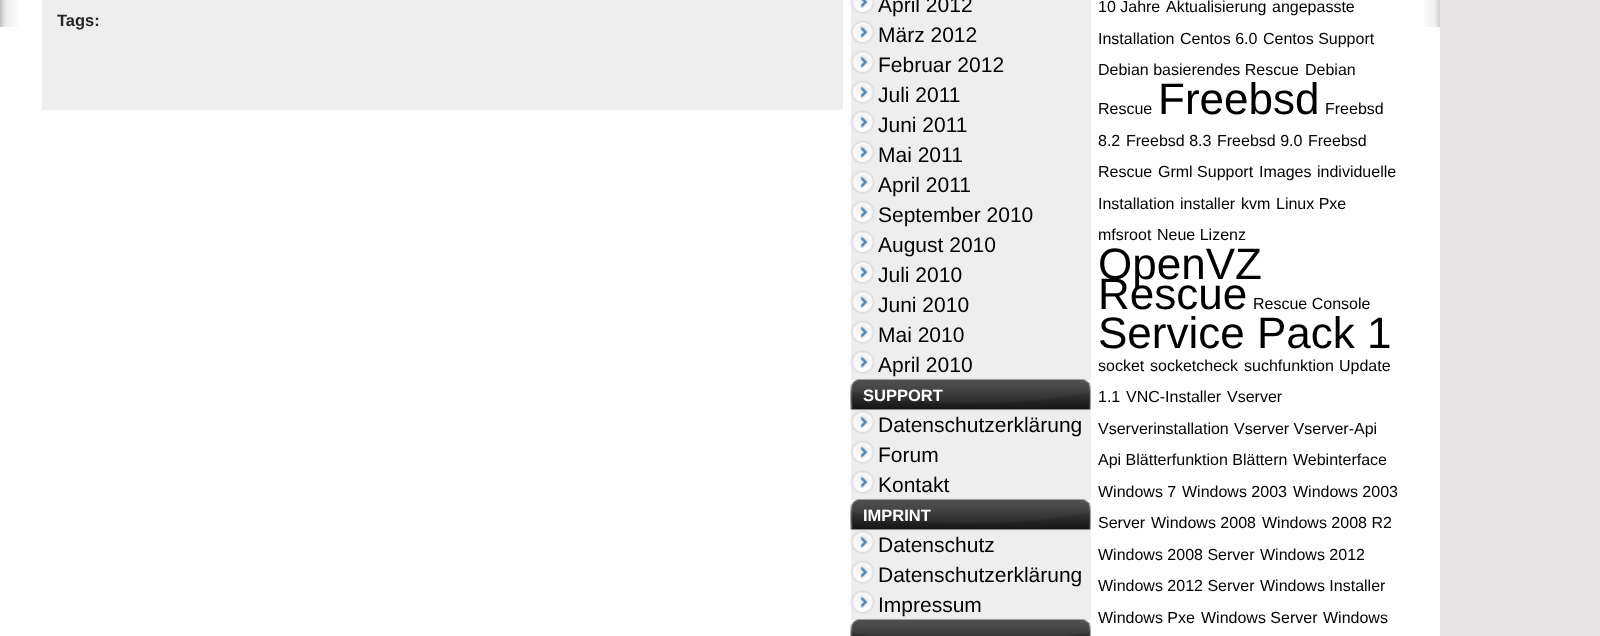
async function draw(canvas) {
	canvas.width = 1600;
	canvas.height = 636;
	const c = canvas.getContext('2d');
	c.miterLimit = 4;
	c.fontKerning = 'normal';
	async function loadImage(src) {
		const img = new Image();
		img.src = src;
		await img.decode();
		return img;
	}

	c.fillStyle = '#e7e5e5';
	c.fillRect(0, 0, 1600, 636);
	c.fillStyle = '#fefefe';
	c.fillRect(0, 0, 1440, 636);
	c.drawImage(await loadImage('img1.png'), 0, 0, 18, 27);
	c.fillStyle = '#eee';
	c.fillRect(42, 0, 801, 110);
	c.font = 'bold 16.5px Liberation Sans';
	c.fillStyle = '#272626';
	c.fillText('Tags:', 57, 26);
	c.fillStyle = '#eee';
	c.fillRect(851, 0, 240, 380);
	c.drawImage(await loadImage('img2.png'), 850, 0, 25, 14);
	c.font = '21px Liberation Sans';
	c.fillStyle = '#000';
	c.fillText('April 2012', 878, 12);
	c.drawImage(await loadImage('img3.png'), 850, 20, 25, 24);
	c.fillText('März 2012', 878, 42);
	c.drawImage(await loadImage('img3.png'), 850, 50, 25, 24);
	c.fillText('Februar 2012', 878, 72);
	c.drawImage(await loadImage('img3.png'), 850, 80, 25, 24);
	c.fillText('Juli 2011', 878, 102);
	c.drawImage(await loadImage('img3.png'), 850, 110, 25, 24);
	c.fillText('Juni 2011', 878, 132);
	c.drawImage(await loadImage('img3.png'), 850, 140, 25, 24);
	c.fillText('Mai 2011', 878, 162);
	c.drawImage(await loadImage('img3.png'), 850, 170, 25, 24);
	c.fillText('April 2011', 878, 192);
	c.drawImage(await loadImage('img3.png'), 850, 200, 25, 24);
	c.fillText('September 2010', 878, 222);
	c.drawImage(await loadImage('img3.png'), 850, 230, 25, 24);
	c.fillText('August 2010', 878, 252);
	c.drawImage(await loadImage('img3.png'), 850, 260, 25, 24);
	c.fillText('Juli 2010', 878, 282);
	c.drawImage(await loadImage('img3.png'), 850, 290, 25, 24);
	c.fillText('Juni 2010', 878, 312);
	c.drawImage(await loadImage('img3.png'), 850, 320, 25, 24);
	c.fillText('Mai 2010', 878, 342);
	c.drawImage(await loadImage('img3.png'), 850, 350, 25, 24);
	c.fillText('April 2010', 878, 372);
	c.drawImage(await loadImage('img4.png'), 850, 379, 241, 31);
	c.font = 'bold 16.5px Liberation Sans';
	c.fillStyle = '#fff';
	c.fillText('SUPPORT', 863, 401);
	c.fillStyle = '#eee';
	c.fillRect(851, 410, 240, 90);
	c.drawImage(await loadImage('img3.png'), 850, 410, 25, 24);
	c.font = '21px Liberation Sans';
	c.fillStyle = '#000';
	c.fillText('Datenschutzerklärung', 878, 432);
	c.drawImage(await loadImage('img3.png'), 850, 440, 25, 24);
	c.fillText('Forum', 878, 462);
	c.drawImage(await loadImage('img3.png'), 850, 470, 25, 24);
	c.fillText('Kontakt', 878, 492);
	c.drawImage(await loadImage('img4.png'), 850, 499, 241, 31);
	c.font = 'bold 16.5px Liberation Sans';
	c.fillStyle = '#fff';
	c.fillText('IMPRINT', 863, 521);
	c.fillStyle = '#eee';
	c.fillRect(851, 530, 240, 90);
	c.drawImage(await loadImage('img3.png'), 850, 530, 25, 24);
	c.font = '21px Liberation Sans';
	c.fillStyle = '#000';
	c.fillText('Datenschutz', 878, 552);
	c.drawImage(await loadImage('img3.png'), 850, 560, 25, 24);
	c.fillText('Datenschutzerklärung', 878, 582);
	c.drawImage(await loadImage('img3.png'), 850, 590, 25, 24);
	c.fillText('Impressum', 878, 612);
	c.drawImage(await loadImage('img5.png'), 850, 619, 241, 17);
	c.font = '16px Liberation Sans';
	for (const [text, x, y] of [
		['10 Jahre', 1098, 12],
		['Aktualisierung', 1166, 12],
		['angepasste', 1272, 12],
		['Installation', 1098, 44],
		['Centos 6.0', 1180, 44],
		['Centos Support', 1263, 44],
		['Debian basierendes Rescue', 1098, 75],
		['Debian', 1305, 75],
		['Rescue', 1098, 114],
	]) {
		c.fillText(text, x, y);
	}
	c.font = '44px Liberation Sans';
	c.fillText('Freebsd', 1158, 114);
	c.font = '16px Liberation Sans';
	for (const [text, x, y] of [
		['Freebsd', 1325, 114],
		['8.2', 1098, 146],
		['Freebsd 8.3', 1126, 146],
		['Freebsd 9.0', 1217, 146],
		['Freebsd', 1308, 146],
		['Rescue', 1098, 177],
		['Grml Support', 1158, 177],
		['Images', 1259, 177],
		['individuelle', 1317, 177],
		['Installation', 1098, 209],
		['installer', 1180, 209],
		['kvm', 1241, 209],
		['Linux Pxe', 1276, 209],
		['mfsroot', 1098, 240],
		['Neue Lizenz', 1157, 240],
	]) {
		c.fillText(text, x, y);
	}
	c.font = '44px Liberation Sans';
	c.fillText('OpenVZ', 1098, 279);
	c.fillText('Rescue', 1098, 309);
	c.font = '16px Liberation Sans';
	c.fillText('Rescue Console', 1253, 309);
	c.font = '44px Liberation Sans';
	c.fillText('Service Pack 1', 1098, 348);
	c.font = '16px Liberation Sans';
	for (const [text, x, y] of [
		['socket', 1098, 371],
		['socketcheck', 1150, 371],
		['suchfunktion', 1244, 371],
		['Update', 1339, 371],
		['1.1', 1098, 402],
		['VNC-Installer', 1126, 402],
		['Vserver', 1227, 402],
		['Vserverinstallation', 1098, 434],
		['Vserver Vserver-Api', 1234, 434],
		['Api Blätterfunktion Blättern', 1098, 465],
		['Webinterface', 1293, 465],
		['Windows 7', 1098, 497],
		['Windows 2003', 1182, 497],
		['Windows 2003', 1293, 497],
		['Server', 1098, 528],
		['Windows 2008', 1151, 528],
		['Windows 2008 R2', 1262, 528],
		['Windows 2008 Server', 1098, 560],
		['Windows 2012', 1260, 560],
		['Windows 2012 Server', 1098, 591],
		['Windows Installer', 1260, 591],
		['Windows Pxe', 1098, 623],
		['Windows Server', 1201, 623],
		['Windows', 1323, 623],
	]) {
		c.fillText(text, x, y);
	}
	c.drawImage(await loadImage('img6.png'), 1424, 0, 16, 27);
}

draw(document.querySelector('canvas'));
